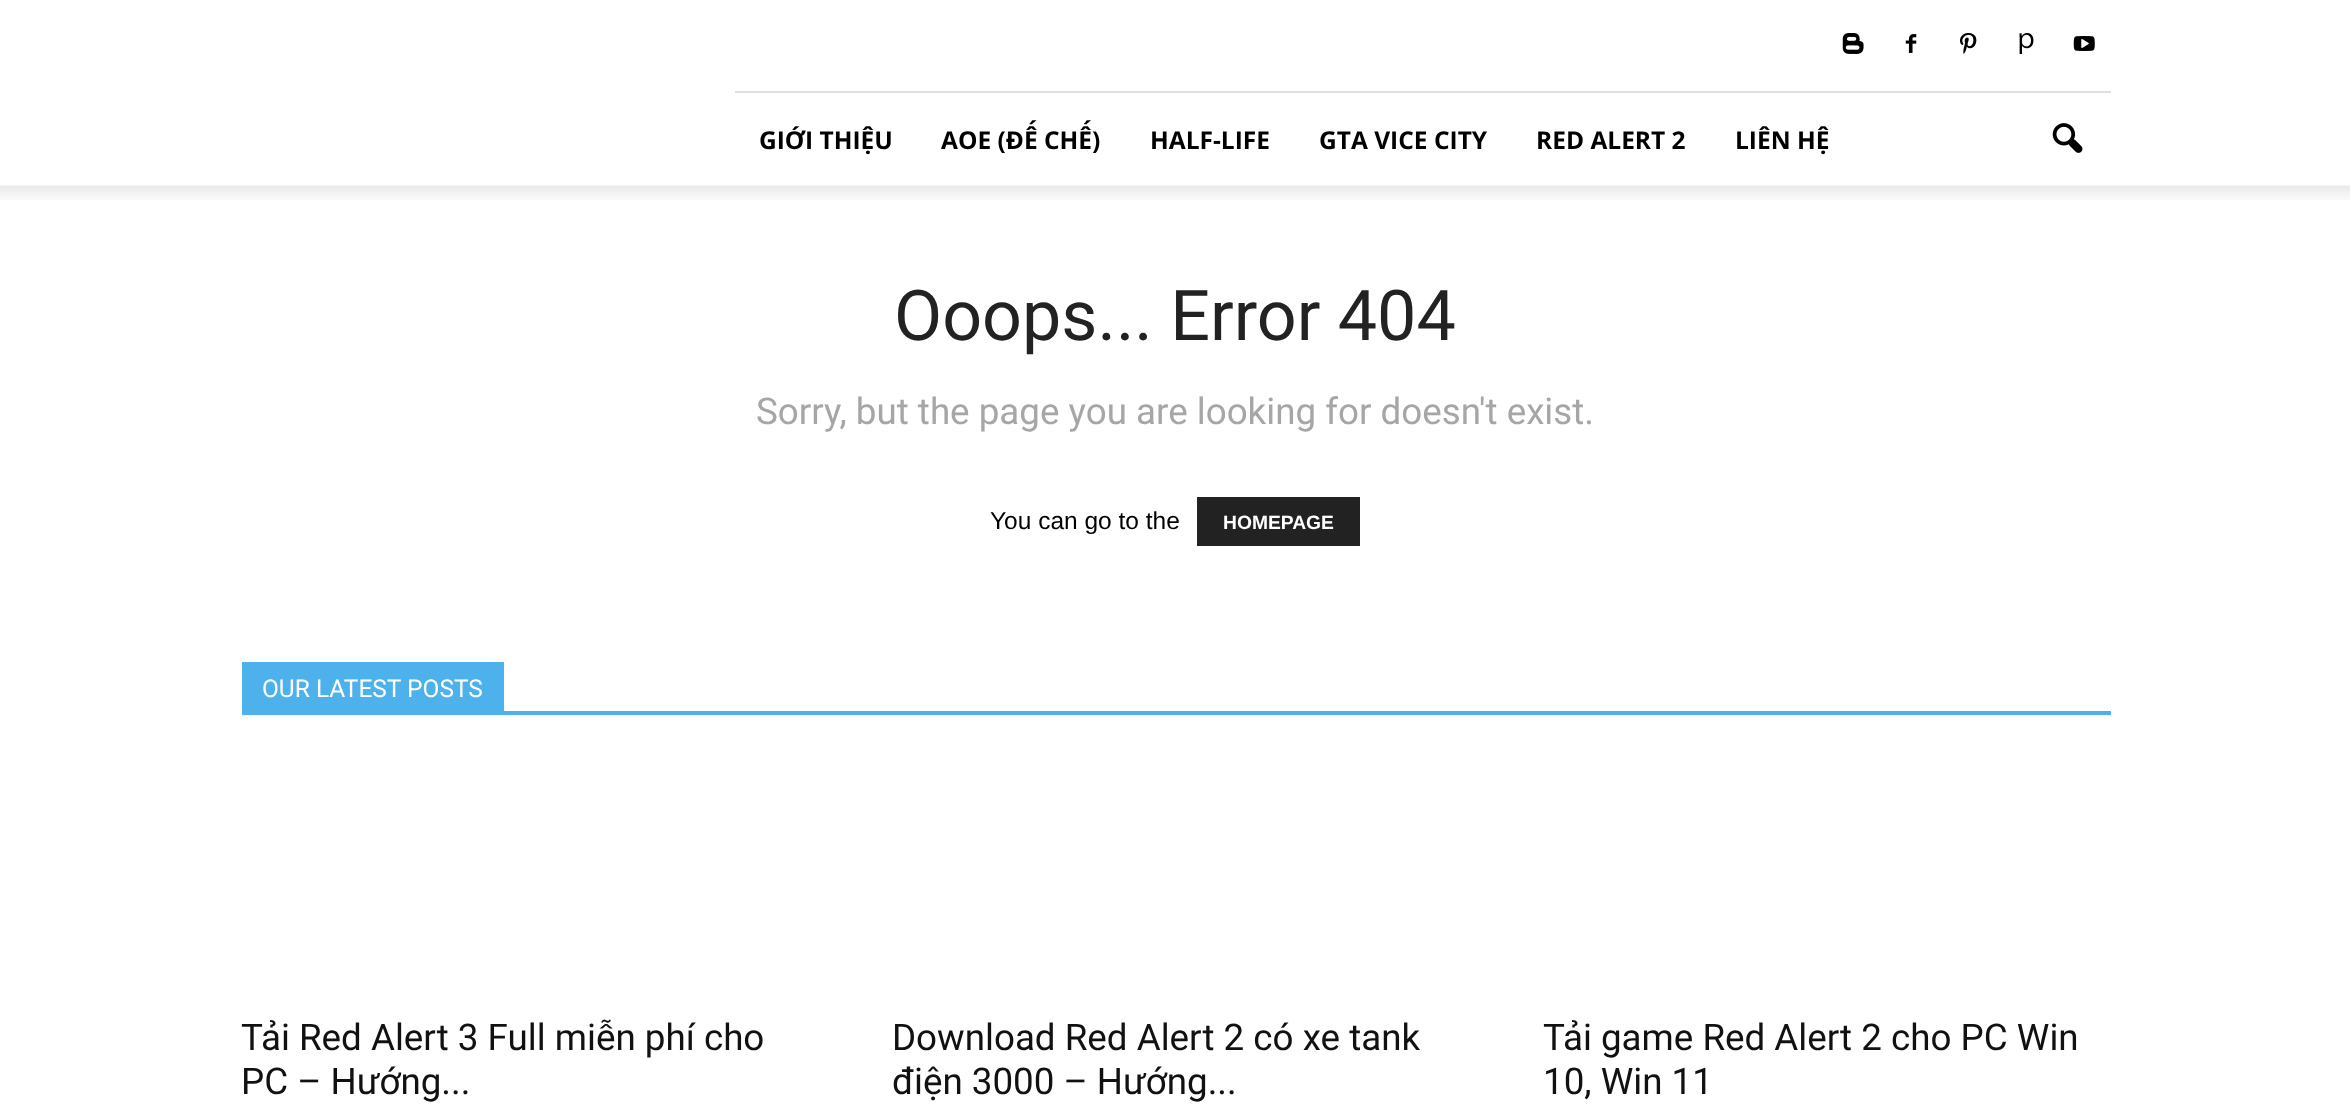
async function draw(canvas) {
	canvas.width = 2350;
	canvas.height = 1104;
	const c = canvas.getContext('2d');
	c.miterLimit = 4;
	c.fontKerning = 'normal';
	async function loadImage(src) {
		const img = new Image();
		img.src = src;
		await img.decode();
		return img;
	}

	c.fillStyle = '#fff';
	c.fillRect(0, 0, 2350, 1104);
	c.fillStyle = '#e0e0e0';
	c.fillRect(735, 91, 1376, 2);
	c.drawImage(await loadImage('img1.png'), 1842, 33, 22, 21);
	c.drawImage(await loadImage('img2.png'), 1905, 34, 12, 19);
	c.drawImage(await loadImage('img3.png'), 1960, 33, 17, 21);
	c.drawImage(await loadImage('img4.png'), 2019, 33, 15, 21);
	c.drawImage(await loadImage('img5.png'), 2073, 36, 22, 15);
	c.font = 'bold 24.5px Open Sans';
	c.fillStyle = '#000';
	for (const [text, x, y] of [
		['GIỚI THIỆU', 759, 149],
		['AOE (ĐẾ CHẾ)', 941, 149],
		['HALF-LIFE', 1150, 149],
		['GTA VICE CITY', 1319, 149],
		['RED ALERT 2', 1536, 149],
		['LIÊN HỆ', 1735, 149],
	]) {
		c.fillText(text, x, y);
	}
	c.drawImage(await loadImage('img6.png'), 2052, 123, 31, 30);
	c.drawImage(await loadImage('img7.png'), 0, 185, 2350, 15);
	c.font = '70px Roboto';
	c.fillStyle = '#222';
	c.fillText('Ooops... Error 404', 894, 340);
	c.font = '36.75px Roboto';
	c.fillStyle = '#a6a6a6';
	c.fillText('Sorry, but the page you are looking for doesn\'t exist.', 756, 424);
	c.font = '24.5px Liberation Sans';
	c.fillStyle = '#000';
	c.fillText('You can go to the', 990, 529);
	c.fillStyle = '#222';
	c.fillRect(1197, 497, 163, 49);
	c.font = 'bold 19.25px Liberation Sans';
	c.fillStyle = '#fff';
	c.fillText('HOMEPAGE', 1223, 529);
	c.fillStyle = '#4db2ec';
	c.fillRect(242, 711, 1869, 4);
	c.fillRect(242, 662, 262, 49);
	c.font = '24.5px Roboto';
	c.fillStyle = '#fff';
	c.fillText('OUR LATEST POSTS', 262, 697);
	c.font = '36.75px Roboto';
	c.fillStyle = '#111';
	for (const [text, x, y] of [
		['Tải Red Alert 3 Full miễn phí cho', 241, 1050],
		['PC – Hướng...', 241, 1094],
		['Download Red Alert 2 có xe tank', 892, 1050],
		['điện 3000 – Hướng...', 892, 1094],
		['Tải game Red Alert 2 cho PC Win', 1543, 1050],
		['10, Win 11', 1543, 1094],
	]) {
		c.fillText(text, x, y);
	}
}

draw(document.querySelector('canvas'));
